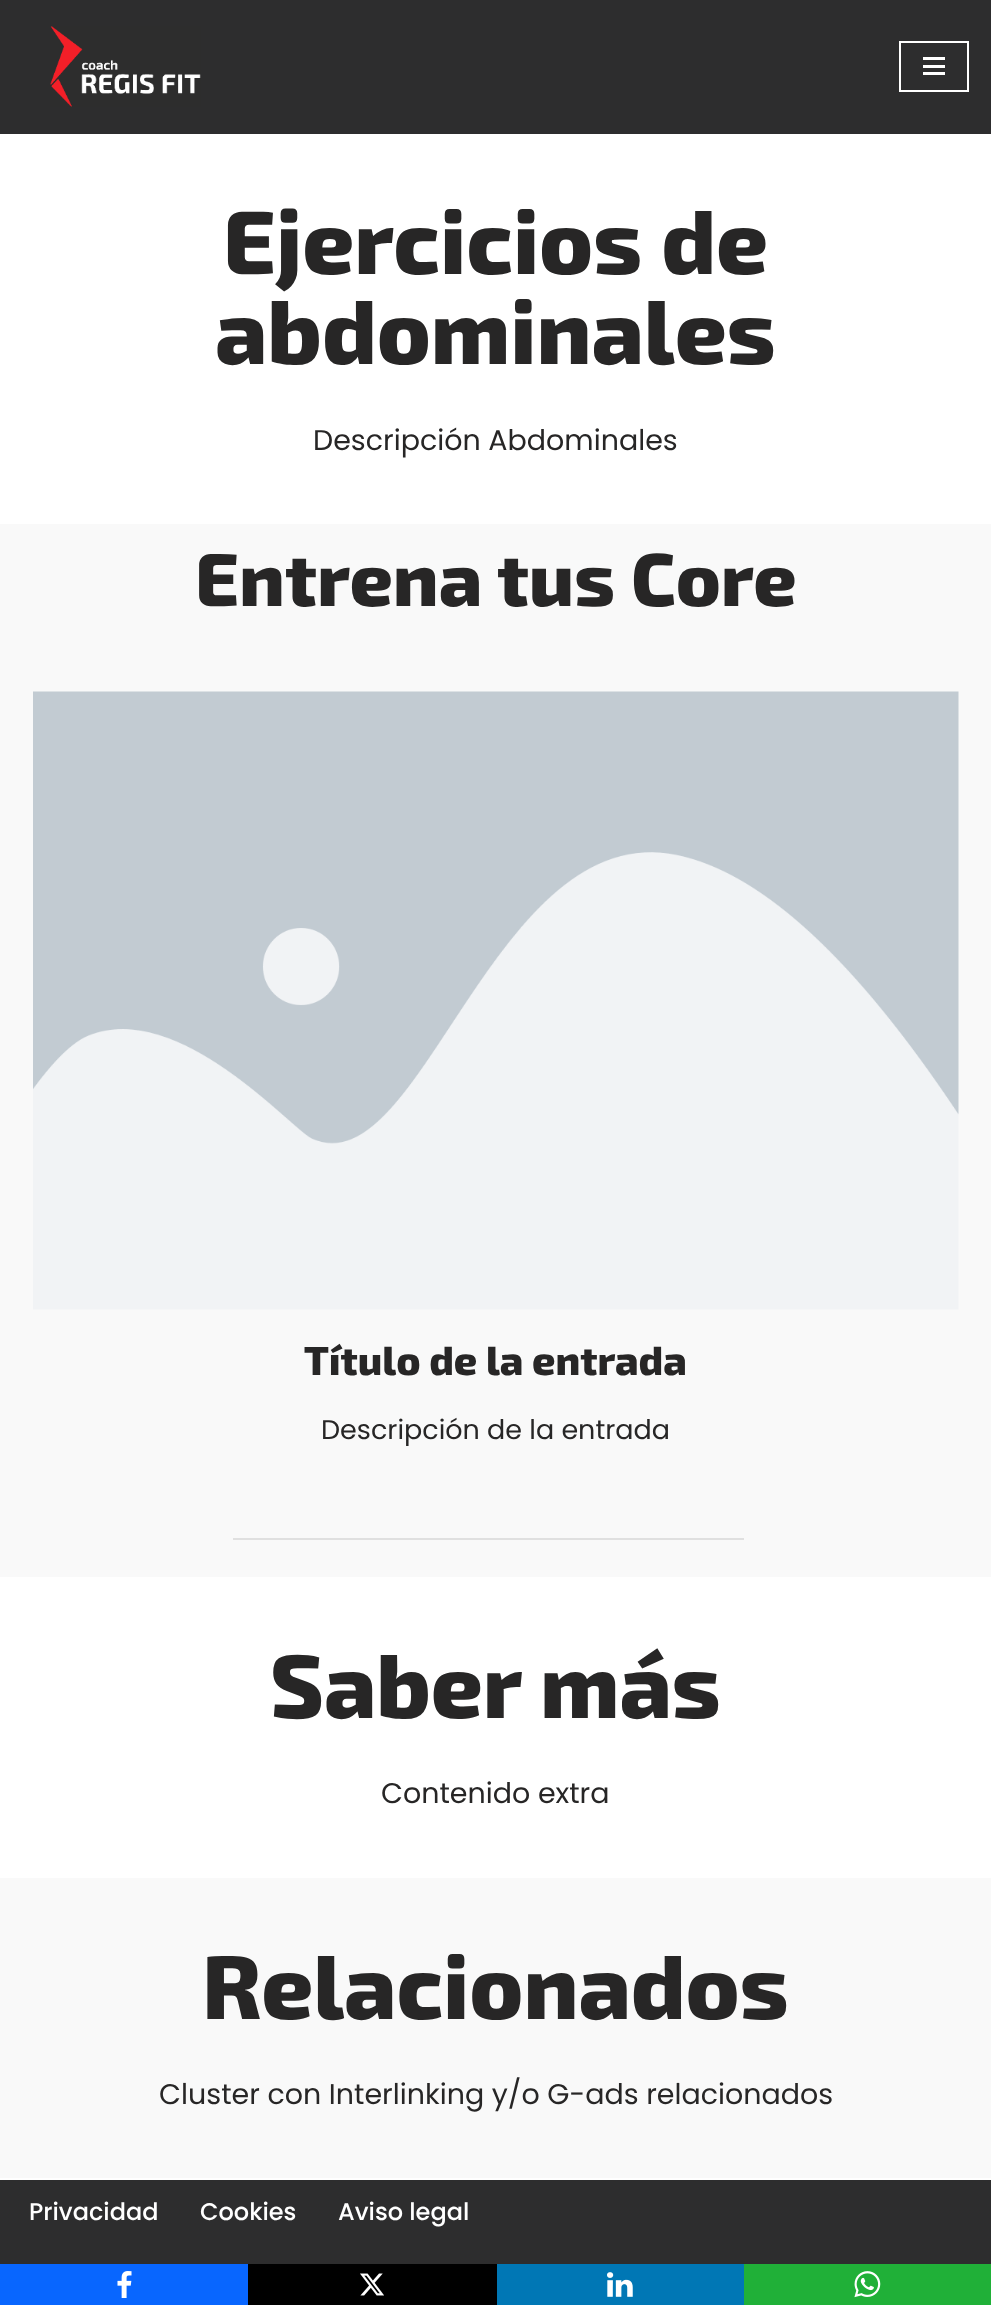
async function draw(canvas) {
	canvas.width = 991;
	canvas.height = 2305;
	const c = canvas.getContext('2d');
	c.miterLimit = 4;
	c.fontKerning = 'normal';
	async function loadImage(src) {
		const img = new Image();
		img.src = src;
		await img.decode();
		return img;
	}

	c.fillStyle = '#fff';
	c.fillRect(0, 0, 991, 2305);
	c.fillStyle = '#2d2d2e';
	c.fillRect(0, 0, 991, 134);
	c.drawImage(await loadImage('img1.png'), 50, 26, 151, 81);
	c.strokeStyle = '#fff';
	c.lineWidth = 2;
	c.strokeRect(900, 42, 68, 49);
	for (const [x, y, w, h, color] of [
		[923, 57, 22, 3, '#fff'],
		[923, 65, 22, 3, '#fff'],
		[923, 72, 22, 3, '#fff'],
	]) {
		c.fillStyle = color;
		c.fillRect(x, y, w, h);
	}
	c.font = '800 90px "Exo 2"';
	c.fillStyle = '#272626';
	c.fillText('Ejercicios de', 223, 274);
	c.fillText('abdominales', 215, 364);
	c.font = '28.5px Poppins';
	c.fillText('Descripción Abdominales', 313, 450);
	c.fillStyle = '#f9f9f9';
	c.fillRect(0, 524, 991, 1053);
	c.font = '800 75px "Exo 2"';
	c.fillStyle = '#272626';
	c.fillText('Entrena tus Core', 195, 606);
	c.drawImage(await loadImage('img2.png'), 33, 691, 926, 619);
	c.font = '800 40.5px "Exo 2"';
	c.fillText('Título de la entrada', 304, 1375);
	c.font = '27px Poppins';
	c.fillText('Descripción de la entrada', 321, 1439);
	c.fillStyle = '#e0e0e0';
	c.fillRect(233, 1538, 511, 2);
	c.font = '800 90px "Exo 2"';
	c.fillStyle = '#272626';
	c.fillText('Saber más', 270, 1718);
	c.font = '28.5px Poppins';
	c.fillText('Contenido extra', 381, 1803);
	c.fillStyle = '#f9f9f9';
	c.fillRect(0, 1878, 991, 300);
	c.font = '800 90px "Exo 2"';
	c.fillStyle = '#272626';
	c.fillText('Relacionados', 202, 2019);
	c.font = '28.5px Poppins';
	c.fillText('Cluster con Interlinking y/o G-ads relacionados', 159, 2104);
	c.fillStyle = '#2d2d2e';
	c.fillRect(0, 2180, 991, 84);
	c.font = '500 24px Poppins';
	c.fillStyle = '#fff';
	for (const [text, x, y] of [
		['Privacidad', 29, 2220],
		['Cookies', 200, 2220],
		['Aviso legal', 338, 2220],
	]) {
		c.fillText(text, x, y);
	}
	c.fillStyle = '#0866ff';
	c.fillRect(0, 2264, 248, 41);
	c.drawImage(await loadImage('img3.png'), 117, 2271, 15, 27);
	c.fillStyle = '#000';
	c.fillRect(248, 2264, 249, 41);
	c.drawImage(await loadImage('img4.png'), 360, 2273, 24, 23);
	c.fillStyle = '#0077b5';
	c.fillRect(497, 2264, 247, 41);
	c.drawImage(await loadImage('img5.png'), 607, 2272, 26, 25);
	c.fillStyle = '#20b038';
	c.fillRect(744, 2264, 247, 41);
	c.drawImage(await loadImage('img6.png'), 854, 2271, 27, 27);
}

draw(document.querySelector('canvas'));
